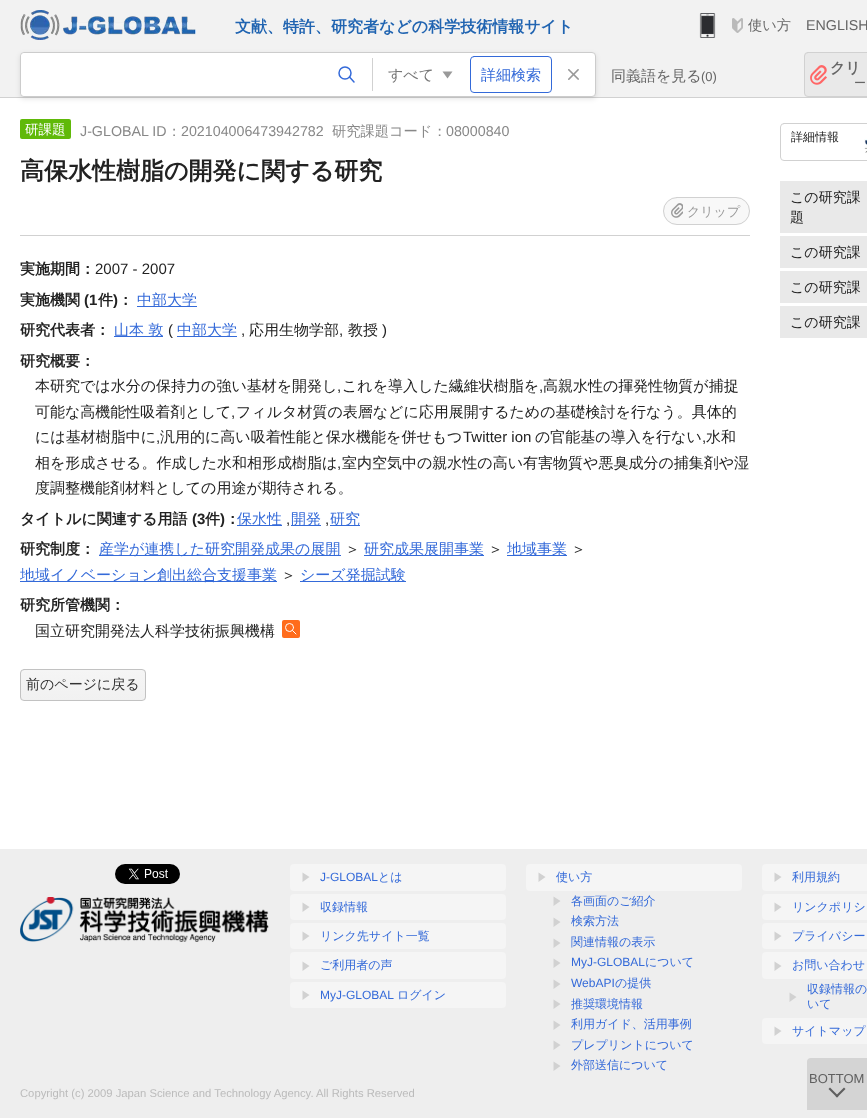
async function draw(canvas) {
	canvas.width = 867;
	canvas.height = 1118;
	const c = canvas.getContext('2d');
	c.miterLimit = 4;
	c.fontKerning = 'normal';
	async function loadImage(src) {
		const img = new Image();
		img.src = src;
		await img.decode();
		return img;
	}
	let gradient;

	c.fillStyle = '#fff';
	c.fillRect(0, 0, 867, 1118);
	c.fillStyle = '#f2f2f2';
	c.fillRect(0, 0, 867, 97);
	c.drawImage(await loadImage('img1.png'), 20, 10, 176, 30);
	c.font = 'bold 16px WenQuanYi Zen Hei';
	c.fillStyle = '#2064b1';
	c.fillText('文献、特許、研究者などの科学技術情報サイト', 235, 32);
	c.drawImage(await loadImage('img2.png'), 699, 13, 17, 25);
	c.drawImage(await loadImage('img3.png'), 732, 18, 11, 15);
	c.font = '500 14.25px WenQuanYi Zen Hei';
	c.fillStyle = '#666';
	c.fillText('使い方', 748, 30);
	c.font = '14.25px Liberation Sans';
	c.fillText('ENGLISH', 806, 30);
	c.fillStyle = '#d1d1d1';
	c.fillRect(0, 97, 867, 1);
	c.fillStyle = '#0000001a';
	c.filter = 'blur(2.5px)';
	c.beginPath();
	c.roundRect(20, 54, 576, 45, 4);
	c.fill();
	c.filter = 'none';
	c.fillStyle = '#fff';
	c.beginPath();
	c.roundRect(20.5, 52.5, 575, 44, 3.5);
	c.fill();
	c.strokeStyle = '#ccc';
	c.stroke();
	c.save();
	c.beginPath();
	c.roundRect(21, 53, 574, 43, 3);
	c.clip();
	c.beginPath();
	c.roundRect(21, 53, 301, 43, 4);
	c.fill();
	c.restore();
	c.beginPath();
	c.arc(345, 73, 6, 0, 2 * Math.PI);
	c.strokeStyle = '#346ad9';
	c.lineWidth = 1.5;
	c.stroke();
	c.beginPath();
	c.moveTo(349.5, 77);
	c.lineTo(354, 82);
	c.lineCap = 'round';
	c.lineJoin = 'round';
	c.stroke();
	c.fillStyle = '#999';
	c.beginPath();
	c.moveTo(452.5, 71.5);
	c.lineTo(447.5, 78.5);
	c.lineTo(442.5, 71.5);
	c.closePath();
	c.fill();
	c.fillStyle = '#d1d1d1';
	c.fillRect(372, 58, 1, 33);
	c.font = '500 15px WenQuanYi Zen Hei';
	c.fillStyle = '#777';
	c.fillText('すべて', 388, 80);
	c.beginPath();
	c.roundRect(470.5, 56.5, 81, 36, 3.5);
	c.lineWidth = 1;
	c.lineJoin = 'miter';
	c.stroke();
	c.fillStyle = '#346ad9';
	c.fillText('詳細検索', 481, 80);
	c.drawImage(await loadImage('img4.png'), 568, 69, 11, 11);
	c.fillStyle = '#666';
	c.fillText('同義語を見る', 611, 81);
	c.font = '13px Liberation Sans';
	c.fillText('(0)', 701, 81);
	c.fillStyle = '#e9e9e9';
	c.beginPath();
	c.roundRect(804, 52, 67, 45, 4);
	c.fill();
	c.drawImage(await loadImage('img5.png'), 810, 65, 17, 20);
	c.beginPath();
	c.roundRect(804.5, 52.5, 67, 44, 3.5);
	c.strokeStyle = '#d1d1d1';
	c.stroke();
	c.font = 'bold 15px WenQuanYi Zen Hei';
	c.fillStyle = '#666';
	c.fillText('クリ', 830, 73);
	c.font = '500 12px WenQuanYi Zen Hei';
	c.fillText('ー', 854, 87);
	c.fillStyle = '#d1d1d1';
	c.fillRect(20, 235, 730, 1);
	c.fillStyle = '#60b909';
	c.beginPath();
	c.roundRect(20, 119, 51, 20, 2);
	c.fill();
	c.font = '500 13.5px WenQuanYi Zen Hei';
	c.fillStyle = '#fff';
	c.fillText('研課題', 25, 134);
	c.font = '14.25px Liberation Sans';
	c.fillStyle = '#888';
	c.fillText('J-GLOBAL ID', 80, 136);
	c.font = '500 14.25px WenQuanYi Zen Hei';
	c.fillText('：', 167, 136);
	c.font = '14.25px Liberation Sans';
	c.fillText('202104006473942782', 181, 136);
	c.font = '500 14.25px WenQuanYi Zen Hei';
	c.fillText('研究課題コード：', 332, 136);
	c.font = '14.25px Liberation Sans';
	c.fillText('08000840', 446, 136);
	c.font = 'bold 24px WenQuanYi Zen Hei';
	c.fillStyle = '#222';
	c.fillText('高保水性樹脂の開発に関する研究', 20, 179);
	c.fillStyle = '#f8f8f8';
	c.beginPath();
	c.roundRect(663, 197, 87, 28, 14);
	c.fill();
	c.drawImage(await loadImage('img6.png'), 671, 203, 12, 15);
	c.beginPath();
	c.roundRect(663.5, 197.5, 86, 27, 13.5);
	c.stroke();
	c.font = '500 13px WenQuanYi Zen Hei';
	c.fillStyle = '#999';
	c.fillText('クリップ', 687, 216);
	c.font = 'bold 15px WenQuanYi Zen Hei';
	c.fillStyle = '#222';
	c.fillText('実施期間：', 20, 274);
	c.font = '15px Liberation Sans';
	c.fillText('2007 - 2007', 95, 274);
	c.font = 'bold 15px WenQuanYi Zen Hei';
	c.fillText('実施機関', 20, 305);
	c.font = 'bold 15px Liberation Sans';
	c.fillText('(1', 84, 305);
	c.font = 'bold 15px WenQuanYi Zen Hei';
	c.fillText('件', 98, 305);
	c.font = 'bold 15px Liberation Sans';
	c.fillText(')', 113, 305);
	c.font = 'bold 15px WenQuanYi Zen Hei';
	c.fillText('：', 118, 305);
	c.fillStyle = '#346ad9';
	c.fillRect(137, 306, 60, 1);
	c.font = '500 15px WenQuanYi Zen Hei';
	c.fillText('中部大学', 137, 305);
	c.font = 'bold 15px WenQuanYi Zen Hei';
	c.fillStyle = '#222';
	c.fillText('研究代表者：', 20, 335);
	c.fillStyle = '#346ad9';
	c.fillRect(114, 336, 49, 1);
	c.font = '500 15px WenQuanYi Zen Hei';
	c.fillText('山本 敦', 114, 335);
	c.font = '15px Liberation Sans';
	c.fillStyle = '#222';
	c.fillText('(', 168, 335);
	c.fillStyle = '#346ad9';
	c.fillRect(177, 336, 60, 1);
	c.font = '500 15px WenQuanYi Zen Hei';
	c.fillText('中部大学', 177, 335);
	c.font = '15px Liberation Sans';
	c.fillStyle = '#222';
	c.fillText(',', 241, 335);
	c.font = '500 15px WenQuanYi Zen Hei';
	c.fillText('応用生物学部', 249, 335);
	c.font = '15px Liberation Sans';
	c.fillText(',', 339, 335);
	c.font = '500 15px WenQuanYi Zen Hei';
	c.fillText('教授', 348, 335);
	c.font = '15px Liberation Sans';
	c.fillText(')', 382, 335);
	c.font = 'bold 15px WenQuanYi Zen Hei';
	c.fillText('研究概要：', 20, 366);
	c.font = '500 15px WenQuanYi Zen Hei';
	c.fillText('本研究では水分の保持力の強い基材を開発し', 35, 391);
	c.font = '15px Liberation Sans';
	c.fillText(',', 337, 391);
	c.font = '500 15px WenQuanYi Zen Hei';
	c.fillText('これを導入した繊維状樹脂を', 342, 391);
	c.font = '15px Liberation Sans';
	c.fillText(',', 539, 391);
	c.font = '500 15px WenQuanYi Zen Hei';
	c.fillText('高親水性の揮発性物質が捕捉', 543, 391);
	c.fillText('可能な高機能性吸着剤として', 35, 417);
	c.font = '15px Liberation Sans';
	c.fillText(',', 231, 417);
	c.font = '500 15px WenQuanYi Zen Hei';
	c.fillText('フィルタ材質の表層などに応用展開するための基礎検討を行なう。具体的', 236, 417);
	c.fillText('には基材樹脂中に', 35, 442);
	c.font = '15px Liberation Sans';
	c.fillText(',', 156, 442);
	c.font = '500 15px WenQuanYi Zen Hei';
	c.fillText('汎用的に高い吸着性能と保水機能を併せもつ', 160, 442);
	c.font = '15px Liberation Sans';
	c.fillText('Twitter ion', 463, 442);
	c.font = '500 15px WenQuanYi Zen Hei';
	c.fillText('の官能基の導入を行ない', 535, 442);
	c.font = '15px Liberation Sans';
	c.fillText(',', 702, 442);
	c.font = '500 15px WenQuanYi Zen Hei';
	c.fillText('水和', 706, 442);
	c.fillText('相を形成させる。作成した水和相形成樹脂は', 35, 468);
	c.font = '15px Liberation Sans';
	c.fillText(',', 337, 468);
	c.font = '500 15px WenQuanYi Zen Hei';
	c.fillText('室内空気中の親水性の高い有害物質や悪臭成分の捕集剤や湿', 342, 468);
	c.fillText('度調整機能剤材料としての用途が期待される。', 35, 493);
	c.font = 'bold 15px WenQuanYi Zen Hei';
	c.fillText('タイトルに関連する用語', 20, 524);
	c.font = 'bold 15px Liberation Sans';
	c.fillText('(3', 192, 524);
	c.font = 'bold 15px WenQuanYi Zen Hei';
	c.fillText('件', 205, 524);
	c.font = 'bold 15px Liberation Sans';
	c.fillText(')', 220, 524);
	c.font = 'bold 15px WenQuanYi Zen Hei';
	c.fillText('：', 225, 524);
	c.fillStyle = '#346ad9';
	c.fillRect(237, 525, 45, 1);
	c.font = '500 15px WenQuanYi Zen Hei';
	c.fillText('保水性', 237, 524);
	c.font = '15px Liberation Sans';
	c.fillStyle = '#222';
	c.fillText(',', 286, 524);
	c.fillStyle = '#346ad9';
	c.fillRect(291, 525, 30, 1);
	c.font = '500 15px WenQuanYi Zen Hei';
	c.fillText('開発', 291, 524);
	c.font = '15px Liberation Sans';
	c.fillStyle = '#222';
	c.fillText(',', 325, 524);
	c.fillStyle = '#346ad9';
	c.fillRect(330, 525, 30, 1);
	c.font = '500 15px WenQuanYi Zen Hei';
	c.fillText('研究', 330, 524);
	c.font = 'bold 15px WenQuanYi Zen Hei';
	c.fillStyle = '#222';
	c.fillText('研究制度：', 20, 554);
	c.fillStyle = '#346ad9';
	c.fillRect(99, 555, 242, 1);
	c.font = '500 15px WenQuanYi Zen Hei';
	c.fillText('産学が連携した研究開発成果の展開', 99, 554);
	c.fillStyle = '#222';
	c.fillText('＞', 345, 554);
	c.fillStyle = '#346ad9';
	c.fillRect(364, 555, 120, 1);
	c.fillText('研究成果展開事業', 364, 554);
	c.fillStyle = '#222';
	c.fillText('＞', 488, 554);
	c.fillStyle = '#346ad9';
	c.fillRect(507, 555, 60, 1);
	c.fillText('地域事業', 507, 554);
	c.fillStyle = '#222';
	c.fillText('＞', 571, 554);
	c.fillStyle = '#346ad9';
	c.fillRect(20, 581, 257, 1);
	c.fillText('地域イノベーション創出総合支援事業', 20, 580);
	c.fillStyle = '#222';
	c.fillText('＞', 281, 580);
	c.fillStyle = '#346ad9';
	c.fillRect(300, 581, 106, 1);
	c.fillText('シーズ発掘試験', 300, 580);
	c.font = 'bold 15px WenQuanYi Zen Hei';
	c.fillStyle = '#222';
	c.fillText('研究所管機関：', 20, 610);
	c.font = '500 15px WenQuanYi Zen Hei';
	c.fillText('国立研究開発法人科学技術振興機構', 35, 636);
	c.fillStyle = '#ff6c1c';
	c.beginPath();
	c.roundRect(282, 620, 18, 18, 2);
	c.fill();
	c.beginPath();
	c.arc(289.5, 627.5, 4, 0, 2 * Math.PI);
	c.strokeStyle = '#fff';
	c.stroke();
	c.beginPath();
	c.moveTo(292.5, 630.5);
	c.lineTo(296, 634);
	c.lineJoin = 'round';
	c.stroke();
	c.save();
	c.beginPath();
	c.roundRect(20, 669, 126, 32, 4);
	c.clip();
	gradient = c.createLinearGradient(83, 670, 83, 700);
	gradient.addColorStop(0, '#f5f5f5');
	gradient.addColorStop(1, '#f1f1f1');
	c.fillStyle = gradient;
	c.fillRect(20, 670, 126, 30);
	c.restore();
	c.beginPath();
	c.roundRect(20.5, 669.5, 125, 31, 3.5);
	c.strokeStyle = '#c2c2c2';
	c.lineJoin = 'miter';
	c.stroke();
	c.font = '500 14px WenQuanYi Zen Hei';
	c.fillStyle = '#333';
	c.fillText('前のページに戻る', 26, 689);
	c.beginPath();
	c.roundRect(780.5, 123.5, 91, 37, 3.5);
	c.strokeStyle = '#d1d1d1';
	c.stroke();
	c.font = '500 12px WenQuanYi Zen Hei';
	c.fillStyle = '#222';
	c.fillText('詳細情報', 791, 141);
	c.drawImage(await loadImage('img7.png'), 864, 139, 3, 14);
	c.fillStyle = '#e9e9e9';
	c.fillRect(780, 181, 87, 52);
	c.font = '500 14px WenQuanYi Zen Hei';
	c.fillStyle = '#222';
	c.fillText('この研究課', 790, 202);
	c.fillText('題', 790, 222);
	c.fillStyle = '#e9e9e9';
	c.fillRect(780, 236, 87, 32);
	c.fillStyle = '#222';
	c.fillText('この研究課', 790, 257);
	c.fillStyle = '#e9e9e9';
	c.fillRect(780, 271, 87, 32);
	c.fillStyle = '#222';
	c.fillText('この研究課', 790, 292);
	c.fillStyle = '#e9e9e9';
	c.fillRect(780, 306, 87, 32);
	c.fillStyle = '#222';
	c.fillText('この研究課', 790, 327);
	c.fillStyle = '#eee';
	c.fillRect(0, 849, 867, 269);
	c.drawImage(await loadImage('img8.png'), 115, 864, 65, 20);
	c.drawImage(await loadImage('img9.png'), 20, 897, 249, 45);
	c.fillStyle = '#f5f5f5';
	c.beginPath();
	c.roundRect(290, 864, 216, 27, 4);
	c.fill();
	c.fillStyle = '#d1d1d1';
	c.beginPath();
	c.moveTo(302.5, 872.5);
	c.lineTo(309.5, 877);
	c.lineTo(302.5, 882);
	c.closePath();
	c.fill();
	c.font = '12px Liberation Sans';
	c.fillStyle = '#346ad9';
	c.fillText('J-GLOBAL', 320, 881);
	c.font = '500 12px WenQuanYi Zen Hei';
	c.fillText('とは', 378, 881);
	c.fillStyle = '#f5f5f5';
	c.beginPath();
	c.roundRect(290, 894, 216, 26, 4);
	c.fill();
	c.fillStyle = '#d1d1d1';
	c.beginPath();
	c.moveTo(302.5, 902.5);
	c.lineTo(309.5, 907);
	c.lineTo(302.5, 912);
	c.closePath();
	c.fill();
	c.fillStyle = '#346ad9';
	c.fillText('収録情報', 320, 911);
	c.fillStyle = '#f5f5f5';
	c.beginPath();
	c.roundRect(290, 923, 216, 26, 4);
	c.fill();
	c.fillStyle = '#d1d1d1';
	c.beginPath();
	c.moveTo(302.5, 931.5);
	c.lineTo(309.5, 936);
	c.lineTo(302.5, 941);
	c.closePath();
	c.fill();
	c.fillStyle = '#346ad9';
	c.fillText('リンク先サイト一覧', 320, 940);
	c.fillStyle = '#f5f5f5';
	c.beginPath();
	c.roundRect(290, 952, 216, 27, 4);
	c.fill();
	c.fillStyle = '#d1d1d1';
	c.beginPath();
	c.moveTo(302.5, 961.5);
	c.lineTo(309.5, 966);
	c.lineTo(302.5, 971);
	c.closePath();
	c.fill();
	c.fillStyle = '#346ad9';
	c.fillText('ご利用者の声', 320, 969);
	c.fillStyle = '#f5f5f5';
	c.beginPath();
	c.roundRect(290, 982, 216, 26, 4);
	c.fill();
	c.fillStyle = '#d1d1d1';
	c.beginPath();
	c.moveTo(302.5, 990.5);
	c.lineTo(309.5, 995);
	c.lineTo(302.5, 1000);
	c.closePath();
	c.fill();
	c.font = '12px Liberation Sans';
	c.fillStyle = '#346ad9';
	c.fillText('MyJ-GLOBAL', 320, 999);
	c.font = '500 12px WenQuanYi Zen Hei';
	c.fillText('ログイン', 397, 999);
	c.fillStyle = '#f5f5f5';
	c.beginPath();
	c.roundRect(526, 864, 216, 27, 4);
	c.fill();
	c.fillStyle = '#d1d1d1';
	c.beginPath();
	c.moveTo(538.5, 872.5);
	c.lineTo(545.5, 877);
	c.lineTo(538.5, 882);
	c.closePath();
	c.moveTo(553.5, 896.5);
	c.lineTo(560.5, 901);
	c.lineTo(553.5, 906);
	c.closePath();
	c.moveTo(553.5, 917.5);
	c.lineTo(560.5, 922);
	c.lineTo(553.5, 927);
	c.closePath();
	c.fill();
	c.fillStyle = '#346ad9';
	for (const [text, x, y] of [
		['使い方', 556, 881],
		['各画面のご紹介', 571, 905],
		['検索方法', 571, 925],
	]) {
		c.fillText(text, x, y);
	}
	c.fillStyle = '#d1d1d1';
	c.beginPath();
	c.moveTo(553.5, 938.5);
	c.lineTo(560.5, 943);
	c.lineTo(553.5, 948);
	c.closePath();
	c.moveTo(553.5, 958.5);
	c.lineTo(560.5, 963);
	c.lineTo(553.5, 968);
	c.closePath();
	c.moveTo(553.5, 979.5);
	c.lineTo(560.5, 984);
	c.lineTo(553.5, 989);
	c.closePath();
	c.fill();
	c.fillStyle = '#346ad9';
	c.fillText('関連情報の表示', 571, 946);
	c.font = '12px Liberation Sans';
	c.fillText('MyJ-GLOBAL', 571, 966);
	c.font = '500 12px WenQuanYi Zen Hei';
	c.fillText('について', 645, 966);
	c.font = '12px Liberation Sans';
	c.fillText('WebAPI', 571, 987);
	c.font = '500 12px WenQuanYi Zen Hei';
	c.fillText('の提供', 615, 987);
	c.fillStyle = '#d1d1d1';
	c.beginPath();
	c.moveTo(553.5, 999.5);
	c.lineTo(560.5, 1004);
	c.lineTo(553.5, 1009);
	c.closePath();
	c.moveTo(553.5, 1020.5);
	c.lineTo(560.5, 1025);
	c.lineTo(553.5, 1030);
	c.closePath();
	c.moveTo(553.5, 1040.5);
	c.lineTo(560.5, 1045);
	c.lineTo(553.5, 1050);
	c.closePath();
	c.fill();
	c.fillStyle = '#346ad9';
	for (const [text, x, y] of [
		['推奨環境情報', 571, 1008],
		['利用ガイド、活用事例', 571, 1028],
		['プレプリントについて', 571, 1049],
	]) {
		c.fillText(text, x, y);
	}
	c.fillStyle = '#d1d1d1';
	c.beginPath();
	c.moveTo(553.5, 1061.5);
	c.lineTo(560.5, 1066);
	c.lineTo(553.5, 1071);
	c.closePath();
	c.fill();
	c.fillStyle = '#346ad9';
	c.fillText('外部送信について', 571, 1069);
	c.fillStyle = '#f5f5f5';
	c.beginPath();
	c.roundRect(762, 864, 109, 27, 4);
	c.fill();
	c.fillStyle = '#d1d1d1';
	c.beginPath();
	c.moveTo(774.5, 872.5);
	c.lineTo(781.5, 877);
	c.lineTo(774.5, 882);
	c.closePath();
	c.fill();
	c.fillStyle = '#346ad9';
	c.fillText('利用規約', 792, 881);
	c.fillStyle = '#f5f5f5';
	c.beginPath();
	c.roundRect(762, 894, 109, 26, 4);
	c.fill();
	c.fillStyle = '#d1d1d1';
	c.beginPath();
	c.moveTo(774.5, 902.5);
	c.lineTo(781.5, 907);
	c.lineTo(774.5, 912);
	c.closePath();
	c.fill();
	c.fillStyle = '#346ad9';
	c.fillText('リンクポリシ', 792, 911);
	c.fillStyle = '#f5f5f5';
	c.beginPath();
	c.roundRect(762, 923, 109, 26, 4);
	c.fill();
	c.fillStyle = '#d1d1d1';
	c.beginPath();
	c.moveTo(774.5, 931.5);
	c.lineTo(781.5, 936);
	c.lineTo(774.5, 941);
	c.closePath();
	c.fill();
	c.fillStyle = '#346ad9';
	c.fillText('プライバシー', 792, 940);
	c.fillStyle = '#f5f5f5';
	c.beginPath();
	c.roundRect(762, 952, 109, 27, 4);
	c.fill();
	c.fillStyle = '#d1d1d1';
	c.beginPath();
	c.moveTo(774.5, 961.5);
	c.lineTo(781.5, 966);
	c.lineTo(774.5, 971);
	c.closePath();
	c.moveTo(789.5, 992.5);
	c.lineTo(796.5, 997);
	c.lineTo(789.5, 1002);
	c.closePath();
	c.fill();
	c.fillStyle = '#346ad9';
	for (const [text, x, y] of [
		['お問い合わせ', 792, 969],
		['収録情報の', 807, 993],
		['いて', 807, 1008],
	]) {
		c.fillText(text, x, y);
	}
	c.fillStyle = '#f5f5f5';
	c.beginPath();
	c.roundRect(762, 1018, 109, 26, 4);
	c.fill();
	c.fillStyle = '#d1d1d1';
	c.beginPath();
	c.moveTo(774.5, 1026.5);
	c.lineTo(781.5, 1031);
	c.lineTo(774.5, 1036);
	c.closePath();
	c.fill();
	c.fillStyle = '#346ad9';
	c.fillText('サイトマップ', 792, 1035);
	c.font = '11.25px Liberation Sans';
	c.fillStyle = '#bbb';
	c.fillText('Copyright (c) 2009 Japan Science and Technology Agency. All Rights Reserved', 20, 1097);
	c.fillStyle = '#d4d4d4';
	c.beginPath();
	c.roundRect(807, 1058, 60, 52, [4, 0, 0, 0]);
	c.fill();
	c.font = '13px Liberation Sans';
	c.fillStyle = '#5f5f5f';
	c.fillText('BOTTOM', 809, 1083);
	c.beginPath();
	c.moveTo(835.5, 1096);
	c.lineTo(844, 1087.5);
	c.lineTo(845.5, 1089);
	c.lineTo(837, 1097.5);
	c.closePath();
	c.fill();
	c.beginPath();
	c.moveTo(828.5, 1089);
	c.lineTo(830, 1087.5);
	c.lineTo(838.5, 1096);
	c.lineTo(837, 1097.5);
	c.closePath();
	c.fill();
}

draw(document.querySelector('canvas'));
